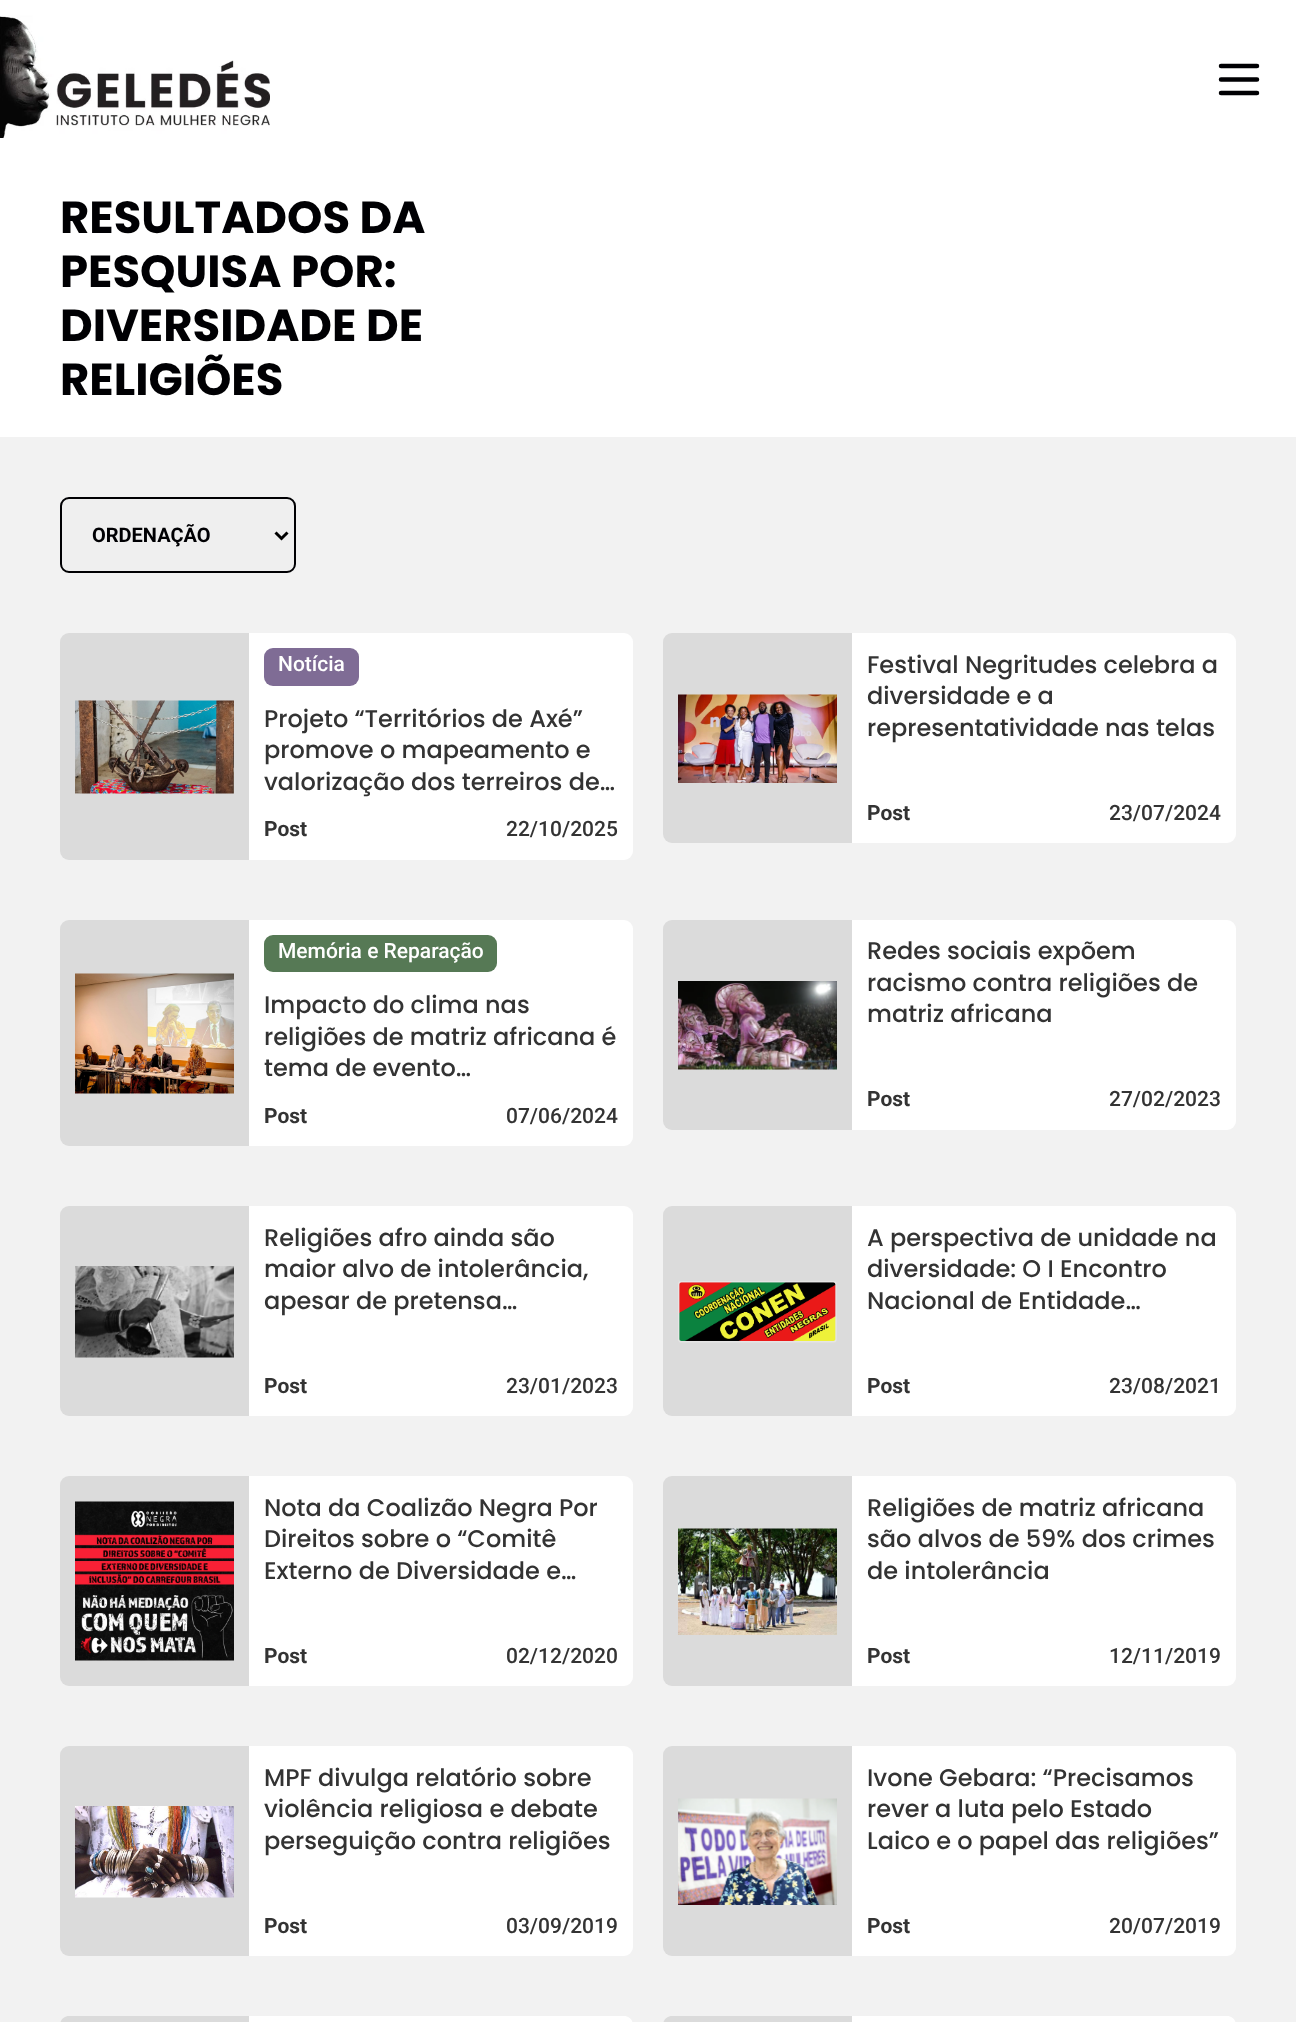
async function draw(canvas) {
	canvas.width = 1296;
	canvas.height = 2022;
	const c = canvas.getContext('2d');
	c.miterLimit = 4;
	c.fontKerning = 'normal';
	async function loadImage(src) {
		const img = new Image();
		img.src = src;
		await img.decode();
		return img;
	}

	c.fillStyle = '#f2f2f2';
	c.fillRect(0, 0, 1296, 2022);
	c.fillStyle = '#fff';
	c.fillRect(0, 0, 1296, 437);
	c.drawImage(await loadImage('img1.png'), 0, 15, 270, 123);
	c.beginPath();
	c.moveTo(1221, 79.5);
	c.lineTo(1257, 79.5);
	c.moveTo(1221, 66);
	c.lineTo(1257, 66);
	c.moveTo(1221, 93);
	c.lineTo(1257, 93);
	c.strokeStyle = '#000003';
	c.lineWidth = 4.5;
	c.lineCap = 'round';
	c.lineJoin = 'round';
	c.stroke();
	c.font = 'bold 45px Poppins';
	c.fillStyle = '#000003';
	for (const [text, x, y] of [
		['RESULTADOS DA', 60, 233],
		['PESQUISA POR:', 60, 287],
		['DIVERSIDADE DE', 60, 341],
		['RELIGIÕES', 60, 395],
	]) {
		c.fillText(text, x, y);
	}
	c.fillStyle = '#efefef';
	c.beginPath();
	c.roundRect(61, 498, 234, 74, 8);
	c.fill();
	c.lineWidth = 2;
	c.lineJoin = 'miter';
	c.stroke();
	c.beginPath();
	c.moveTo(275.5, 532.5);
	c.lineTo(281.5, 538.5);
	c.lineTo(287.5, 532.5);
	c.strokeStyle = '#000';
	c.lineWidth = 3;
	c.lineCap = 'butt';
	c.stroke();
	c.font = 'bold 20px Roboto';
	c.fillStyle = '#000003';
	c.fillText('ORDENAÇÃO', 92, 542);
	c.fillStyle = '#dbdbdb';
	c.beginPath();
	c.roundRect(60, 633, 189, 227, [9, 0, 0, 9]);
	c.fill();
	c.drawImage(await loadImage('img2.png'), 75, 700, 159, 94);
	c.fillStyle = '#fff';
	c.beginPath();
	c.roundRect(249, 633, 384, 227, [0, 9, 9, 0]);
	c.fill();
	c.fillStyle = '#7f6c95';
	c.beginPath();
	c.roundRect(264, 648, 95, 38, 9);
	c.fill();
	c.font = '500 21px Roboto';
	c.fillStyle = '#fff';
	c.fillText('Notícia', 278, 671);
	c.font = '500 24px Poppins';
	c.fillStyle = '#333';
	for (const [text, x, y] of [
		['Projeto “Territórios de Axé”', 264, 727],
		['promove o mapeamento e', 264, 758],
		['valorização dos terreiros de…', 264, 790],
	]) {
		c.fillText(text, x, y);
	}
	c.font = 'bold 21px Roboto';
	c.fillText('Post', 264, 836);
	c.font = '500 21px Roboto';
	c.fillText('22/10/2025', 506, 836);
	c.fillStyle = '#dbdbdb';
	c.beginPath();
	c.roundRect(663, 633, 189, 210, [9, 0, 0, 9]);
	c.fill();
	c.drawImage(await loadImage('img3.png'), 678, 694, 159, 89);
	c.fillStyle = '#fff';
	c.beginPath();
	c.roundRect(852, 633, 384, 210, [0, 9, 9, 0]);
	c.fill();
	c.font = '500 24px Poppins';
	c.fillStyle = '#333';
	for (const [text, x, y] of [
		['Festival Negritudes celebra a', 867, 673],
		['diversidade e a', 867, 704],
		['representatividade nas telas', 867, 736],
	]) {
		c.fillText(text, x, y);
	}
	c.font = 'bold 21px Roboto';
	c.fillText('Post', 867, 820);
	c.font = '500 21px Roboto';
	c.fillText('23/07/2024', 1109, 820);
	c.fillStyle = '#dbdbdb';
	c.beginPath();
	c.roundRect(60, 920, 189, 226, [9, 0, 0, 9]);
	c.fill();
	c.drawImage(await loadImage('img4.png'), 75, 973, 159, 121);
	c.fillStyle = '#fff';
	c.beginPath();
	c.roundRect(249, 920, 384, 226, [0, 9, 9, 0]);
	c.fill();
	c.fillStyle = '#567955';
	c.beginPath();
	c.roundRect(264, 935, 233, 37, 9);
	c.fill();
	c.fillStyle = '#fff';
	c.fillText('Memória e Reparação', 278, 958);
	c.font = '500 24px Poppins';
	c.fillStyle = '#333';
	for (const [text, x, y] of [
		['Impacto do clima nas', 264, 1013],
		['religiões de matriz africana é', 264, 1045],
		['tema de evento…', 264, 1076],
	]) {
		c.fillText(text, x, y);
	}
	c.font = 'bold 21px Roboto';
	c.fillText('Post', 264, 1123);
	c.font = '500 21px Roboto';
	c.fillText('07/06/2024', 506, 1123);
	c.fillStyle = '#dbdbdb';
	c.beginPath();
	c.roundRect(663, 920, 189, 210, [9, 0, 0, 9]);
	c.fill();
	c.drawImage(await loadImage('img5.png'), 678, 981, 159, 89);
	c.fillStyle = '#fff';
	c.beginPath();
	c.roundRect(852, 920, 384, 210, [0, 9, 9, 0]);
	c.fill();
	c.font = '500 24px Poppins';
	c.fillStyle = '#333';
	for (const [text, x, y] of [
		['Redes sociais expõem', 867, 959],
		['racismo contra religiões de', 867, 991],
		['matriz africana', 867, 1022],
	]) {
		c.fillText(text, x, y);
	}
	c.font = 'bold 21px Roboto';
	c.fillText('Post', 867, 1106);
	c.font = '500 21px Roboto';
	c.fillText('27/02/2023', 1109, 1106);
	c.fillStyle = '#dbdbdb';
	c.beginPath();
	c.roundRect(60, 1206, 189, 210, [9, 0, 0, 9]);
	c.fill();
	c.drawImage(await loadImage('img6.png'), 75, 1266, 159, 92);
	c.fillStyle = '#fff';
	c.beginPath();
	c.roundRect(249, 1206, 384, 210, [0, 9, 9, 0]);
	c.fill();
	c.font = '500 24px Poppins';
	c.fillStyle = '#333';
	for (const [text, x, y] of [
		['Religiões afro ainda são', 264, 1246],
		['maior alvo de intolerância,', 264, 1277],
		['apesar de pretensa…', 264, 1309],
	]) {
		c.fillText(text, x, y);
	}
	c.font = 'bold 21px Roboto';
	c.fillText('Post', 264, 1393);
	c.font = '500 21px Roboto';
	c.fillText('23/01/2023', 506, 1393);
	c.fillStyle = '#dbdbdb';
	c.beginPath();
	c.roundRect(663, 1206, 189, 210, [9, 0, 0, 9]);
	c.fill();
	c.drawImage(await loadImage('img7.png'), 678, 1281, 159, 62);
	c.fillStyle = '#fff';
	c.beginPath();
	c.roundRect(852, 1206, 384, 210, [0, 9, 9, 0]);
	c.fill();
	c.font = '500 24px Poppins';
	c.fillStyle = '#333';
	for (const [text, x, y] of [
		['A perspectiva de unidade na', 867, 1246],
		['diversidade: O I Encontro', 867, 1277],
		['Nacional de Entidade…', 867, 1309],
	]) {
		c.fillText(text, x, y);
	}
	c.font = 'bold 21px Roboto';
	c.fillText('Post', 867, 1393);
	c.font = '500 21px Roboto';
	c.fillText('23/08/2021', 1109, 1393);
	c.fillStyle = '#dbdbdb';
	c.beginPath();
	c.roundRect(60, 1476, 189, 210, [9, 0, 0, 9]);
	c.fill();
	c.drawImage(await loadImage('img8.png'), 75, 1501, 159, 160);
	c.fillStyle = '#fff';
	c.beginPath();
	c.roundRect(249, 1476, 384, 210, [0, 9, 9, 0]);
	c.fill();
	c.font = '500 24px Poppins';
	c.fillStyle = '#333';
	for (const [text, x, y] of [
		['Nota da Coalizão Negra Por', 264, 1516],
		['Direitos sobre o “Comitê', 264, 1547],
		['Externo de Diversidade e…', 264, 1579],
	]) {
		c.fillText(text, x, y);
	}
	c.font = 'bold 21px Roboto';
	c.fillText('Post', 264, 1663);
	c.font = '500 21px Roboto';
	c.fillText('02/12/2020', 506, 1663);
	c.fillStyle = '#dbdbdb';
	c.beginPath();
	c.roundRect(663, 1476, 189, 210, [9, 0, 0, 9]);
	c.fill();
	c.drawImage(await loadImage('img9.png'), 678, 1528, 159, 107);
	c.fillStyle = '#fff';
	c.beginPath();
	c.roundRect(852, 1476, 384, 210, [0, 9, 9, 0]);
	c.fill();
	c.font = '500 24px Poppins';
	c.fillStyle = '#333';
	for (const [text, x, y] of [
		['Religiões de matriz africana', 867, 1516],
		['são alvos de 59% dos crimes', 867, 1547],
		['de intolerância', 867, 1579],
	]) {
		c.fillText(text, x, y);
	}
	c.font = 'bold 21px Roboto';
	c.fillText('Post', 867, 1663);
	c.font = '500 21px Roboto';
	c.fillText('12/11/2019', 1109, 1663);
	c.fillStyle = '#dbdbdb';
	c.beginPath();
	c.roundRect(60, 1746, 189, 210, [9, 0, 0, 9]);
	c.fill();
	c.drawImage(await loadImage('img10.png'), 75, 1806, 159, 92);
	c.fillStyle = '#fff';
	c.beginPath();
	c.roundRect(249, 1746, 384, 210, [0, 9, 9, 0]);
	c.fill();
	c.font = '500 24px Poppins';
	c.fillStyle = '#333';
	for (const [text, x, y] of [
		['MPF divulga relatório sobre', 264, 1786],
		['violência religiosa e debate', 264, 1817],
		['perseguição contra religiões', 264, 1849],
	]) {
		c.fillText(text, x, y);
	}
	c.font = 'bold 21px Roboto';
	c.fillText('Post', 264, 1933);
	c.font = '500 21px Roboto';
	c.fillText('03/09/2019', 506, 1933);
	c.fillStyle = '#dbdbdb';
	c.beginPath();
	c.roundRect(663, 1746, 189, 210, [9, 0, 0, 9]);
	c.fill();
	c.drawImage(await loadImage('img11.png'), 678, 1798, 159, 107);
	c.fillStyle = '#fff';
	c.beginPath();
	c.roundRect(852, 1746, 384, 210, [0, 9, 9, 0]);
	c.fill();
	c.font = '500 24px Poppins';
	c.fillStyle = '#333';
	for (const [text, x, y] of [
		['Ivone Gebara: “Precisamos', 867, 1786],
		['rever a luta pelo Estado', 867, 1817],
		['Laico e o papel das religiões”', 867, 1849],
	]) {
		c.fillText(text, x, y);
	}
	c.font = 'bold 21px Roboto';
	c.fillText('Post', 867, 1933);
	c.font = '500 21px Roboto';
	c.fillText('20/07/2019', 1109, 1933);
	c.fillStyle = '#dbdbdb';
	c.beginPath();
	c.moveTo(69, 2016);
	c.lineTo(249, 2016);
	c.lineTo(249, 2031);
	c.lineTo(69, 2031);
	c.bezierCurveTo(64, 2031, 60, 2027, 60, 2022);
	c.lineTo(60, 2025);
	c.bezierCurveTo(60, 2020, 64, 2016, 69, 2016);
	c.closePath();
	c.fill();
	c.fillStyle = '#fff';
	c.beginPath();
	c.moveTo(249, 2016);
	c.lineTo(624, 2016);
	c.bezierCurveTo(629, 2016, 633, 2020, 633, 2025);
	c.lineTo(633, 2022);
	c.bezierCurveTo(633, 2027, 629, 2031, 624, 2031);
	c.lineTo(249, 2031);
	c.closePath();
	c.fill();
	c.fillStyle = '#dbdbdb';
	c.beginPath();
	c.moveTo(672, 2016);
	c.lineTo(852, 2016);
	c.lineTo(852, 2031);
	c.lineTo(672, 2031);
	c.bezierCurveTo(667, 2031, 663, 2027, 663, 2022);
	c.lineTo(663, 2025);
	c.bezierCurveTo(663, 2020, 667, 2016, 672, 2016);
	c.closePath();
	c.fill();
	c.fillStyle = '#fff';
	c.beginPath();
	c.moveTo(852, 2016);
	c.lineTo(1227, 2016);
	c.bezierCurveTo(1232, 2016, 1236, 2020, 1236, 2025);
	c.lineTo(1236, 2022);
	c.bezierCurveTo(1236, 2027, 1232, 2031, 1227, 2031);
	c.lineTo(852, 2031);
	c.closePath();
	c.fill();
}

draw(document.querySelector('canvas'));
